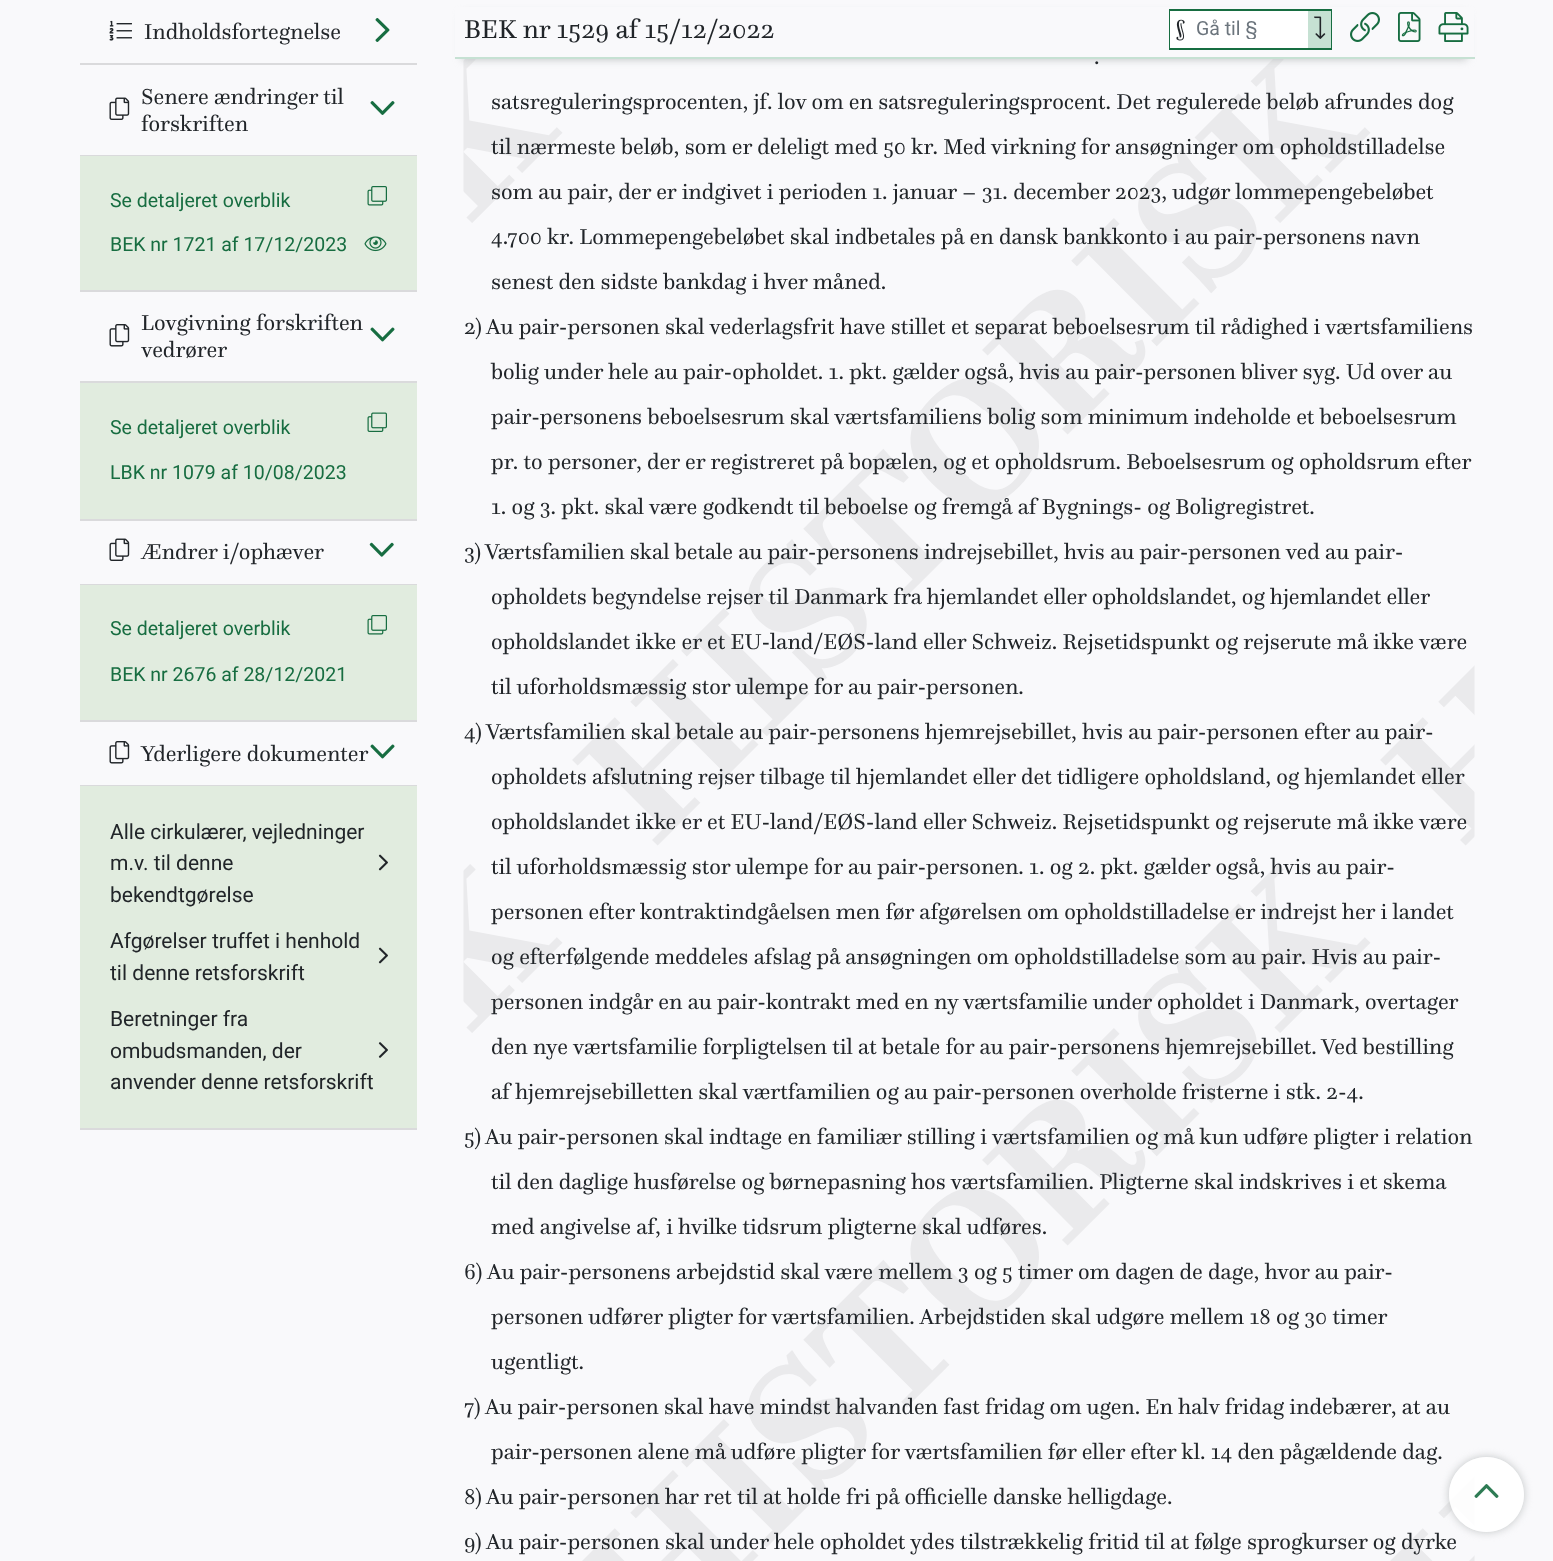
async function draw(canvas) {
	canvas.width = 1553;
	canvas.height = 1561;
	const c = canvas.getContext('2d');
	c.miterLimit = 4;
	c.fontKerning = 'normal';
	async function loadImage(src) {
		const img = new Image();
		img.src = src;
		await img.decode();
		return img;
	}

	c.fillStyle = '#f9f9fb';
	c.fillRect(0, 0, 1553, 1561);
	c.fillStyle = '#dadadc';
	c.fillRect(80, 63, 337, 2);
	c.drawImage(await loadImage('img1.png'), 109, 20, 23, 21);
	c.font = '22.5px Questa';
	c.fillStyle = '#212529';
	c.fillText('Indholdsfortegnelse', 144, 39);
	c.drawImage(await loadImage('img2.png'), 375, 18, 15, 24);
	c.fillStyle = '#dadadc';
	c.fillRect(80, 290, 337, 2);
	c.fillRect(80, 155, 337, 1);
	c.drawImage(await loadImage('img3.png'), 109, 97, 21, 23);
	c.fillStyle = '#212529';
	c.fillText('Senere ændringer til', 141, 104);
	c.fillText('forskriften', 141, 131);
	c.drawImage(await loadImage('img4.png'), 370, 101, 25, 14);
	c.fillStyle = '#e1ecdf';
	c.fillRect(80, 156, 337, 134);
	c.font = '19.5px Roboto';
	c.fillStyle = '#176d41';
	c.fillText('Se detaljeret overblik', 110, 207);
	c.drawImage(await loadImage('img5.png'), 367, 186, 20, 20);
	c.fillText('BEK nr 1721 af 17/12/2023', 110, 251);
	c.drawImage(await loadImage('img6.png'), 364, 236, 23, 16);
	c.fillStyle = '#dadadc';
	c.fillRect(80, 519, 337, 2);
	c.fillRect(80, 381, 337, 2);
	c.drawImage(await loadImage('img7.png'), 109, 324, 21, 23);
	c.font = '22.5px Questa';
	c.fillStyle = '#212529';
	c.fillText('Lovgivning forskriften', 141, 330);
	c.fillText('vedrører', 141, 357);
	c.drawImage(await loadImage('img8.png'), 370, 327, 25, 15);
	c.fillStyle = '#e1ecdf';
	c.fillRect(80, 383, 337, 136);
	c.font = '19.5px Roboto';
	c.fillStyle = '#176d41';
	c.fillText('Se detaljeret overblik', 110, 434);
	c.drawImage(await loadImage('img9.png'), 367, 412, 20, 20);
	c.fillText('LBK nr 1079 af 10/08/2023', 110, 479);
	c.fillStyle = '#dadadc';
	c.fillRect(80, 720, 337, 2);
	c.fillRect(80, 584, 337, 1);
	c.drawImage(await loadImage('img3.png'), 109, 538, 21, 23);
	c.font = '22.5px Questa';
	c.fillStyle = '#212529';
	c.fillText('Ændrer i/ophæver', 141, 559);
	c.drawImage(await loadImage('img10.png'), 369, 542, 25, 15);
	c.fillStyle = '#e1ecdf';
	c.fillRect(80, 585, 337, 135);
	c.font = '19.5px Roboto';
	c.fillStyle = '#176d41';
	c.fillText('Se detaljeret overblik', 110, 635);
	c.drawImage(await loadImage('img5.png'), 367, 615, 20, 20);
	c.fillText('BEK nr 2676 af 28/12/2021', 110, 681);
	c.fillStyle = '#dadadc';
	c.fillRect(80, 1128, 337, 2);
	c.fillRect(80, 785, 337, 1);
	c.drawImage(await loadImage('img7.png'), 109, 741, 21, 23);
	c.font = '22.5px Questa';
	c.fillStyle = '#212529';
	c.fillText('Yderligere dokumenter', 141, 761);
	c.drawImage(await loadImage('img8.png'), 370, 744, 25, 15);
	c.fillStyle = '#e1ecdf';
	c.fillRect(80, 786, 337, 342);
	c.font = '21px Roboto';
	c.fillStyle = '#212529';
	for (const [text, x, y] of [
		['Alle cirkulærer, vejledninger', 110, 839],
		['m.v. til denne', 110, 870],
		['bekendtgørelse', 110, 902],
	]) {
		c.fillText(text, x, y);
	}
	c.drawImage(await loadImage('img11.png'), 378, 854, 10, 17);
	c.fillText('Afgørelser truffet i henhold', 110, 948);
	c.fillText('til denne retsforskrift', 110, 980);
	c.drawImage(await loadImage('img11.png'), 378, 947, 10, 17);
	for (const [text, x, y] of [
		['Beretninger fra', 110, 1026],
		['ombudsmanden, der', 110, 1058],
		['anvender denne retsforskrift', 110, 1089],
	]) {
		c.fillText(text, x, y);
	}
	c.drawImage(await loadImage('img12.png'), 378, 1042, 10, 16);
	c.drawImage(await loadImage('img17.png'), 463, 59, 1012, 1502);
	c.fillStyle = '#babebf';
	c.filter = 'blur(4px)';
	c.beginPath();
	c.rect(462, 14, 1005, 45);
	c.fill();
	c.filter = 'none';
	c.fillStyle = '#f9f9fb';
	c.fillRect(455, 7, 1019, 50);
	c.fillStyle = '#c6e1d3';
	c.fillRect(455, 57, 1020, 2);
	c.font = '27px Questa';
	c.fillStyle = '#212529';
	c.fillText('BEK nr 1529 af 15/12/2022', 464, 38);
	c.strokeStyle = '#176d41';
	c.lineWidth = 2;
	c.strokeRect(1170, 10, 161, 39);
	c.fillStyle = '#fff';
	c.fillRect(1170, 11, 138, 37);
	c.font = '22.5px Questa';
	c.fillStyle = '#212529';
	c.fillText('§', 1175, 35);
	c.save();
	c.beginPath();
	c.rect(1197, 17, 105, 22);
	c.clip();
	c.font = '19.5px Roboto';
	c.fillStyle = '#6c757d';
	c.fillText('Gå til §', 1196, 35);
	c.restore();
	c.fillStyle = '#c6e1d3';
	c.fillRect(1308, 11, 23, 37);
	c.drawImage(await loadImage('img13.png'), 1314, 16, 12, 23);
	c.drawImage(await loadImage('img14.png'), 1350, 12, 30, 30);
	c.drawImage(await loadImage('img15.png'), 1398, 12, 23, 30);
	c.drawImage(await loadImage('img16.png'), 1438, 12, 31, 30);
	c.fillStyle = '#212529';
	for (const [text, x, y] of [
		['.', 1094, 64],
		['satsreguleringsprocenten, jf. lov om en satsreguleringsprocent. Det regulerede beløb afrundes dog', 491, 109],
		['til nærmeste beløb, som er deleligt med 50 kr. Med virkning for ansøgninger om opholdstilladelse', 491, 154],
		['som au pair, der er indgivet i perioden 1. januar – 31. december 2023, udgør lommepengebeløbet', 491, 199],
		['4.700 kr. Lommepengebeløbet skal indbetales på en dansk bankkonto i au pair-personens navn', 491, 244],
		['senest den sidste bankdag i hver måned.', 491, 289],
		['2)', 464, 334],
		['Au pair-personen skal vederlagsfrit have stillet et separat beboelsesrum til rådighed i værtsfamiliens', 486, 334],
		['bolig under hele au pair-opholdet. 1. pkt. gælder også, hvis au pair-personen bliver syg. Ud over au', 491, 379],
		['pair-personens beboelsesrum skal værtsfamiliens bolig som minimum indeholde et beboelsesrum', 491, 424],
		['pr. to personer, der er registreret på bopælen, og et opholdsrum. Beboelsesrum og opholdsrum efter', 491, 469],
		['1. og 3. pkt. skal være godkendt til beboelse og fremgå af Bygnings- og Boligregistret.', 491, 514],
		['3)', 464, 559],
		['Værtsfamilien skal betale au pair-personens indrejsebillet, hvis au pair-personen ved au pair-', 485, 559],
		['opholdets begyndelse rejser til Danmark fra hjemlandet eller opholdslandet, og hjemlandet eller', 491, 604],
		['opholdslandet ikke er et EU-land/EØS-land eller Schweiz. Rejsetidspunkt og rejserute må ikke være', 491, 649],
		['til uforholdsmæssig stor ulempe for au pair-personen.', 491, 694],
		['4)', 464, 739],
		['Værtsfamilien skal betale au pair-personens hjemrejsebillet, hvis au pair-personen efter au pair-', 486, 739],
		['opholdets afslutning rejser tilbage til hjemlandet eller det tidligere opholdsland, og hjemlandet eller', 491, 784],
		['opholdslandet ikke er et EU-land/EØS-land eller Schweiz. Rejsetidspunkt og rejserute må ikke være', 491, 829],
		['til uforholdsmæssig stor ulempe for au pair-personen. 1. og 2. pkt. gælder også, hvis au pair-', 491, 874],
		['personen efter kontraktindgåelsen men før afgørelsen om opholdstilladelse er indrejst her i landet', 491, 919],
		['og efterfølgende meddeles afslag på ansøgningen om opholdstilladelse som au pair. Hvis au pair-', 491, 964],
		['personen indgår en au pair-kontrakt med en ny værtsfamilie under opholdet i Danmark, overtager', 491, 1009],
		['den nye værtsfamilie forpligtelsen til at betale for au pair-personens hjemrejsebillet. Ved bestilling', 491, 1054],
		['af hjemrejsebilletten skal værtfamilien og au pair-personen overholde fristerne i stk. 2-4.', 491, 1099],
		['5)', 464, 1144],
		['Au pair-personen skal indtage en familiær stilling i værtsfamilien og må kun udføre pligter i relation', 485, 1144],
		['til den daglige husførelse og børnepasning hos værtsfamilien. Pligterne skal indskrives i et skema', 491, 1189],
		['med angivelse af, i hvilke tidsrum pligterne skal udføres.', 491, 1234],
		['6)', 464, 1279],
		['Au pair-personens arbejdstid skal være mellem 3 og 5 timer om dagen de dage, hvor au pair-', 487, 1279],
		['personen udfører pligter for værtsfamilien. Arbejdstiden skal udgøre mellem 18 og 30 timer', 491, 1324],
		['ugentligt.', 491, 1369],
		['7)', 464, 1414],
		['Au pair-personen skal have mindst halvanden fast fridag om ugen. En halv fridag indebærer, at au', 485, 1414],
		['pair-personen alene må udføre pligter for værtsfamilien før eller efter kl. 14 den pågældende dag.', 491, 1459],
		['8)', 464, 1504],
		['Au pair-personen har ret til at holde fri på officielle danske helligdage.', 486, 1504],
		['9)', 464, 1549],
		['Au pair-personen skal under hele opholdet ydes tilstrækkelig fritid til at følge sprogkurser og dyrke', 486, 1549],
	]) {
		c.fillText(text, x, y);
	}
	c.save();
	c.beginPath();
	c.moveTo(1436, 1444);
	c.lineTo(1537, 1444);
	c.lineTo(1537, 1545);
	c.lineTo(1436, 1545);
	c.closePath();
	c.moveTo(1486.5, 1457);
	c.bezierCurveTo(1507, 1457, 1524, 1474, 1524, 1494.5);
	c.bezierCurveTo(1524, 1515, 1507, 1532, 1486.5, 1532);
	c.bezierCurveTo(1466, 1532, 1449, 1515, 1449, 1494.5);
	c.bezierCurveTo(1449, 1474, 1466, 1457, 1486.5, 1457);
	c.closePath();
	c.clip('evenodd');
	c.fillStyle = '#babebfe6';
	c.filter = 'blur(4px)';
	c.beginPath();
	c.roundRect(1449, 1457, 75, 75, 37.5);
	c.fill();
	c.filter = 'none';
	c.restore();
	c.fillStyle = '#ffffffe6';
	c.beginPath();
	c.arc(1486.5, 1494.5, 37.5, 0, 2 * Math.PI);
	c.fill();
	c.drawImage(await loadImage('img18.png'), 1474, 1484, 25, 14);
}

draw(document.querySelector('canvas'));
